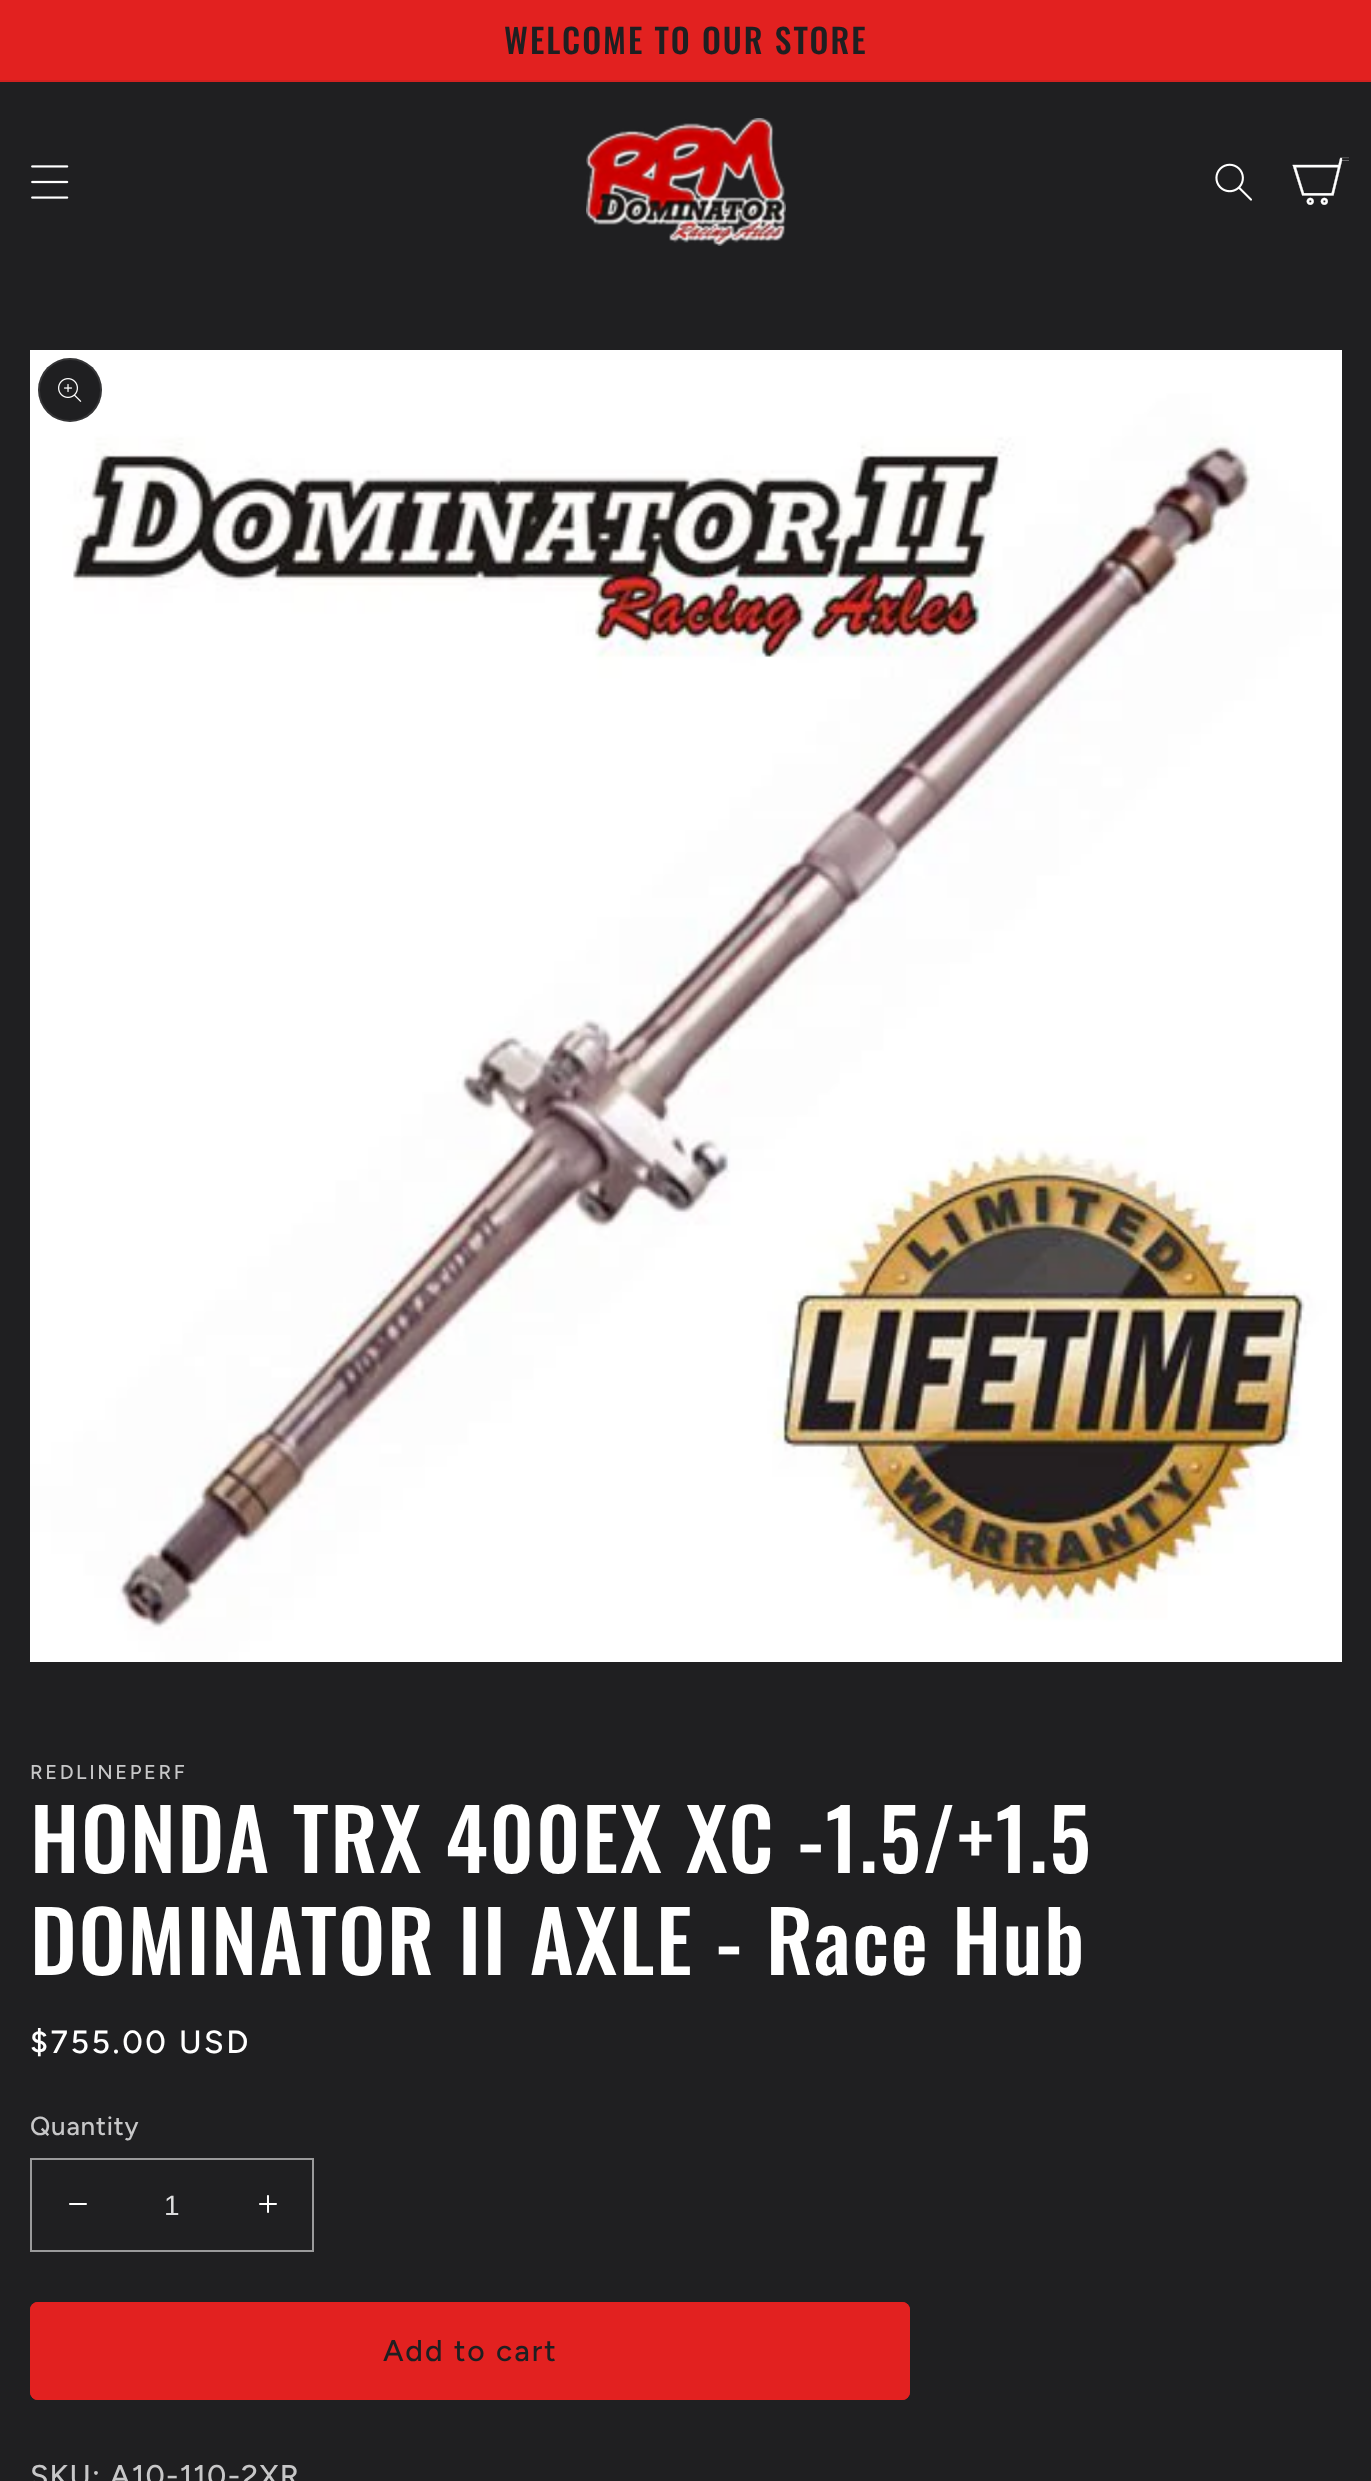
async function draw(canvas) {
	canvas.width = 1371;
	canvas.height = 2481;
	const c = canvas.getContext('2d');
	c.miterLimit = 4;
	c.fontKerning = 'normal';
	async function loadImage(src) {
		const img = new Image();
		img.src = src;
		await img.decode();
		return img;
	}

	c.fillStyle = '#1f1f21';
	c.fillRect(0, 0, 1371, 2481);
	c.fillStyle = '#e22120';
	c.fillRect(0, 0, 1371, 80);
	c.fillStyle = '#d22120';
	c.fillRect(0, 80, 1371, 2);
	c.letterSpacing = '2px';
	c.font = '500 33.6px Oswald';
	c.fillStyle = '#1f1f21';
	c.fillText('WELCOME TO OUR STORE', 504, 54);
	c.drawImage(await loadImage('img1.png'), 31, 165, 38, 34);
	c.drawImage(await loadImage('img2.png'), 586, 118, 200, 128);
	c.drawImage(await loadImage('img3.png'), 1215, 163, 37, 38);
	c.drawImage(await loadImage('img4.png'), 1292, 157, 57, 48);
	c.drawImage(await loadImage('img5.png'), 30, 350, 1312, 1312);
	c.beginPath();
	c.arc(70, 390, 32, 0, 2 * Math.PI);
	c.fill();
	c.beginPath();
	c.arc(70, 390, 31, 0, 2 * Math.PI);
	c.strokeStyle = '#ffffff1a';
	c.lineWidth = 2;
	c.stroke();
	c.drawImage(await loadImage('img6.png'), 58, 378, 24, 24);
	c.letterSpacing = '2.6px';
	c.font = '500 20px Figtree';
	c.fillStyle = '#c7c7c8';
	c.fillText('REDLINEPERF', 30, 1779);
	c.letterSpacing = '1.7px';
	c.font = '500 84px Oswald';
	c.fillStyle = '#fff';
	c.fillText('HONDA TRX 400EX XC -1.5/+1.5', 30, 1873);
	c.fillText('DOMINATOR II AXLE - Race Hub', 30, 1975);
	c.letterSpacing = '2.6px';
	c.font = '500 32px Figtree';
	c.fillText('$755.00 USD', 30, 2053);
	c.letterSpacing = '0.75px';
	c.font = '500 26px Figtree';
	c.fillStyle = '#c7c7c8';
	c.fillText('Quantity', 30, 2135);
	c.drawImage(await loadImage('img7.png'), 69, 2203, 18, 2);
	c.drawImage(await loadImage('img8.png'), 259, 2195, 18, 18);
	c.strokeStyle = '#9a9a9b';
	c.strokeRect(31, 2159, 282, 92);
	c.letterSpacing = '0px';
	c.font = '28px Liberation Sans';
	c.fillStyle = '#ddddde';
	c.fillText('1', 164, 2215);
	c.fillStyle = '#e22120';
	c.beginPath();
	c.roundRect(30, 2302, 880, 98, 8);
	c.fill();
	c.beginPath();
	c.roundRect(32, 2304, 876, 94, 6);
	c.strokeStyle = '#e22120';
	c.lineWidth = 4;
	c.stroke();
	c.letterSpacing = '2px';
	c.font = '500 30px Figtree';
	c.fillStyle = '#1f1f21';
	c.fillText('Add to cart', 383, 2361);
	c.letterSpacing = '1.25px';
	c.fillStyle = '#c7c7c8';
	c.fillText('SKU: A10-110-2XR', 30, 2486);
}

draw(document.querySelector('canvas'));
